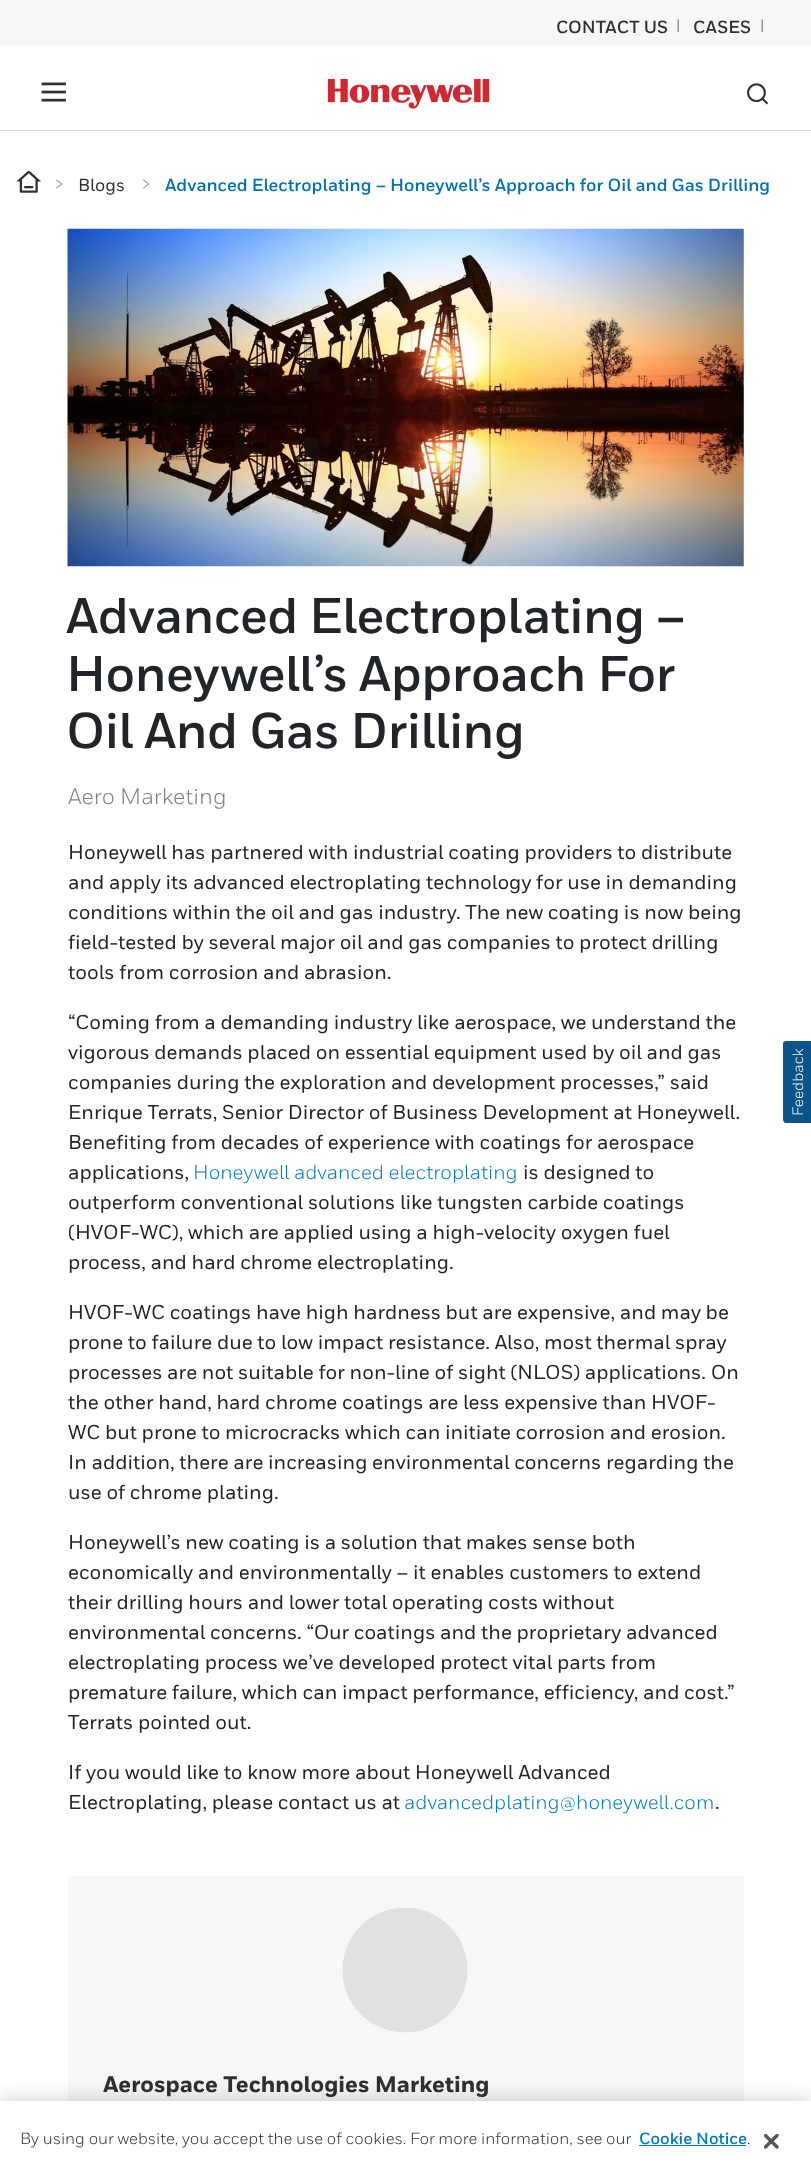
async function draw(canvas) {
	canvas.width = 811;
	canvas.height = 2163;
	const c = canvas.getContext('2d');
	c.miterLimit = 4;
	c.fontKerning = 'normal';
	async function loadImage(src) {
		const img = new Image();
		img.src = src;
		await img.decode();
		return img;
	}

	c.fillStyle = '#fff';
	c.fillRect(0, 0, 811, 2163);
	c.fillStyle = '#f7f7f7';
	c.fillRect(0, 0, 811, 46);
	c.font = 'bold 17.5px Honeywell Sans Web';
	c.fillStyle = '#303030';
	c.fillText('CONTACT US', 556, 33);
	c.font = '15px Honeywell Sans Web';
	c.fillText('|', 676, 31);
	c.font = 'bold 17.5px Honeywell Sans Web';
	c.fillText('CASES', 693, 33);
	c.font = '15px Honeywell Sans Web';
	c.fillText('|', 760, 31);
	c.fillStyle = '#d8d8d8';
	c.fillRect(0, 130, 811, 1);
	c.drawImage(await loadImage('img1.png'), 41, 82, 25, 20);
	c.drawImage(await loadImage('img2.png'), 328, 79, 162, 30);
	c.drawImage(await loadImage('img3.png'), 747, 83, 22, 22);
	c.drawImage(await loadImage('img4.png'), 16, 171, 25, 22);
	c.font = '22.5px Honeywell Sans Web';
	c.fillStyle = '#a0a0a0';
	c.fillText('>', 54, 191);
	c.font = '500 17.5px Honeywell Sans Web';
	c.fillStyle = '#303030';
	c.fillText('Blogs', 78, 191);
	c.font = '22.5px Honeywell Sans Web';
	c.fillStyle = '#a0a0a0';
	c.fillText('>', 141, 191);
	c.font = 'bold 17.5px Honeywell Sans Web';
	c.fillStyle = '#0071b3';
	c.fillText('Advanced Electroplating – Honeywell’s Approach for Oil and Gas Drilling', 165, 191);
	c.drawImage(await loadImage('img5.png'), 67, 228, 677, 339);
	c.letterSpacing = '-0.5px';
	c.font = 'bold 50px Honeywell Sans Web';
	c.fillStyle = '#212529';
	for (const [text, x, y] of [
		['Advanced Electroplating –', 66, 633],
		['Honeywell’s Approach For', 66, 691],
		['Oil And Gas Drilling', 66, 748],
	]) {
		c.fillText(text, x, y);
	}
	c.letterSpacing = '0px';
	c.font = '22.5px Honeywell Sans Web';
	c.fillStyle = '#808080';
	c.fillText('Aero Marketing', 68, 804);
	c.font = '500 20px Honeywell Sans Web';
	c.fillStyle = '#212529';
	for (const [text, x, y] of [
		['Honeywell has partnered with industrial coating providers to distribute', 68, 859],
		['and apply its advanced electroplating technology for use in demanding', 68, 889],
		['conditions within the oil and gas industry. The new coating is now being', 68, 919],
		['field-tested by several major oil and gas companies to protect drilling', 68, 949],
		['tools from corrosion and abrasion.', 68, 979],
		['“Coming from a demanding industry like aerospace, we understand the', 68, 1029],
		['vigorous demands placed on essential equipment used by oil and gas', 68, 1059],
		['companies during the exploration and development processes,” said', 68, 1089],
		['Enrique Terrats, Senior Director of Business Development at Honeywell.', 68, 1119],
		['Benefiting from decades of experience with coatings for aerospace', 68, 1149],
		['applications,', 68, 1179],
	]) {
		c.fillText(text, x, y);
	}
	c.font = '20px Honeywell Sans Web';
	c.fillStyle = '#007bc2';
	c.fillText('Honeywell advanced electroplating', 193, 1179);
	c.font = '500 20px Honeywell Sans Web';
	c.fillStyle = '#212529';
	for (const [text, x, y] of [
		['is designed to', 523, 1179],
		['outperform conventional solutions like tungsten carbide coatings', 68, 1209],
		['(HVOF-WC), which are applied using a high-velocity oxygen fuel', 68, 1239],
		['process, and hard chrome electroplating.', 68, 1269],
		['HVOF-WC coatings have high hardness but are expensive, and may be', 68, 1319],
		['prone to failure due to low impact resistance. Also, most thermal spray', 68, 1349],
		['processes are not suitable for non-line of sight (NLOS) applications. On', 68, 1379],
		['the other hand, hard chrome coatings are less expensive than HVOF-', 68, 1409],
		['WC but prone to microcracks which can initiate corrosion and erosion.', 68, 1439],
		['In addition, there are increasing environmental concerns regarding the', 68, 1469],
		['use of chrome plating.', 68, 1499],
		['Honeywell’s new coating is a solution that makes sense both', 68, 1549],
		['economically and environmentally – it enables customers to extend', 68, 1579],
		['their drilling hours and lower total operating costs without', 68, 1609],
		['environmental concerns. “Our coatings and the proprietary advanced', 68, 1639],
		['electroplating process we’ve developed protect vital parts from', 68, 1669],
		['premature failure, which can impact performance, efficiency, and cost.”', 68, 1699],
		['Terrats pointed out.', 68, 1729],
		['If you would like to know more about Honeywell Advanced', 68, 1779],
		['Electroplating, please contact us at', 68, 1809],
	]) {
		c.fillText(text, x, y);
	}
	c.font = '20px Honeywell Sans Web';
	c.fillStyle = '#007bc2';
	c.fillText('advancedplating@honeywell.com', 404, 1809);
	c.font = '500 20px Honeywell Sans Web';
	c.fillStyle = '#212529';
	c.fillText('.', 715, 1809);
	c.fillStyle = '#f7f7f7';
	c.fillRect(68, 1876, 676, 225);
	c.drawImage(await loadImage('img6.png'), 342, 1907, 126, 126);
	c.font = '800 22.5px Honeywell Sans Web';
	c.fillStyle = '#303030';
	c.fillText('Aerospace Technologies Marketing', 103, 2092);
	c.fillStyle = '#095488';
	c.beginPath();
	c.moveTo(783, 1119);
	c.lineTo(783, 1044);
	c.bezierCurveTo(783, 1042, 784, 1041, 786, 1041);
	c.lineTo(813, 1041);
	c.lineTo(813, 1123);
	c.lineTo(786, 1123);
	c.bezierCurveTo(784, 1123, 783, 1121, 783, 1119);
	c.closePath();
	c.fill();
	c.font = '15px Honeywell Sans Web';
	c.fillStyle = '#fff';
	c.save();
	c.translate(803, 1116);
	c.rotate(-90 * Math.PI / 180);
	c.fillText('Feedback', 0, 0);
	c.restore();
	c.fillStyle = '#00000033';
	c.filter = 'blur(11px)';
	c.beginPath();
	c.rect(0, 2101, 811, 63);
	c.fill();
	c.filter = 'none';
	c.fillStyle = '#fff';
	c.fillRect(0, 2101, 811, 62);
	c.font = '16.25px Honeywell Sans Web';
	c.fillStyle = '#303030';
	c.fillText('By using our website, you accept the use of cookies. For more information, see our', 20, 2144);
	c.font = 'bold 16.25px Honeywell Sans Web';
	c.fillStyle = '#007bc2';
	c.fillText('Cookie Notice', 639, 2144);
	c.fillRect(639, 2145, 107, 1);
	c.font = '16.25px Honeywell Sans Web';
	c.fillStyle = '#303030';
	c.fillText('.', 747, 2144);
	c.drawImage(await loadImage('img7.png'), 764, 2134, 15, 15);
}

draw(document.querySelector('canvas'));
